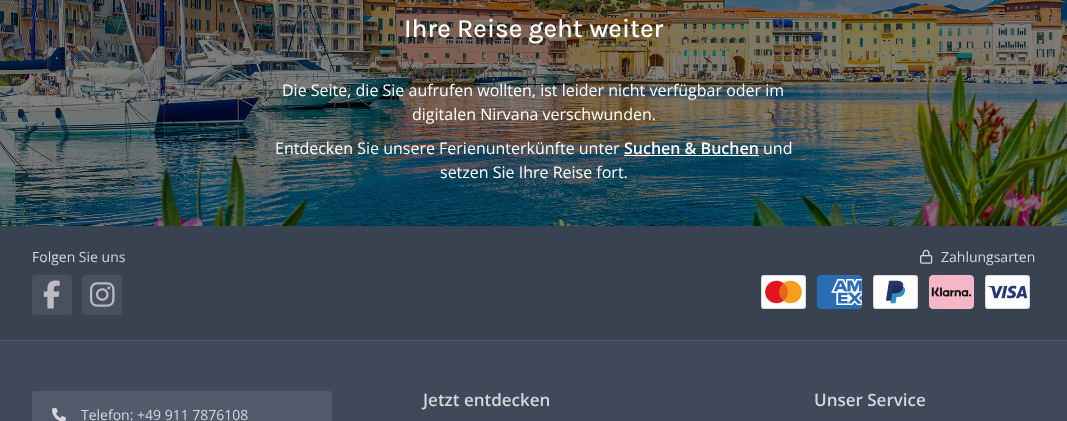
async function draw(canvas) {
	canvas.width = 1067;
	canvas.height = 421;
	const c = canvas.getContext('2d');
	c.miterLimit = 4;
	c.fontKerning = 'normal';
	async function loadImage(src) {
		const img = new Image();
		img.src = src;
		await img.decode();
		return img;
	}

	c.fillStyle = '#3f495a';
	c.fillRect(0, 0, 1067, 421);
	c.drawImage(await loadImage('img1.png'), 0, 0, 1067, 226);
	c.font = '15px Open Sans';
	c.fillStyle = '#4b4b48';
	c.fillText('Ferienanlagen', 237, 26);
	c.fillStyle = '#56544a';
	c.fillText('o', 776, 26);
	c.fillStyle = '#4b4b48';
	c.fillText('Urlaub mit Hund', 421, 76);
	c.fillStyle = '#5e5140';
	c.fillText('Ihr Reiseschutz', 550, 76);
	c.font = '500 26px Karla';
	c.fillStyle = '#fff';
	c.fillText('Ihre Reise geht weiter', 404, 37);
	c.font = '16px Open Sans';
	for (const [text, x, y] of [
		['Die Seite, die Sie aufrufen wollten, ist leider nicht verfügbar oder im', 282, 96],
		['digitalen Nirvana verschwunden.', 412, 120],
		['Entdecken Sie unsere Ferienunterkünfte unter', 275, 154],
	]) {
		c.fillText(text, x, y);
	}
	c.font = '600 16px Open Sans';
	c.fillText('Suchen & Buchen', 624, 154);
	c.fillRect(624, 155, 135, 1);
	c.font = '16px Open Sans';
	c.fillText('und', 763, 154);
	c.fillText('setzen Sie Ihre Reise fort.', 440, 178);
	c.fillStyle = '#394251';
	c.fillRect(0, 226, 1067, 114);
	c.fillStyle = '#4d5562';
	c.fillRect(0, 340, 1067, 1);
	c.font = '14px Open Sans';
	c.fillStyle = '#d7d7db';
	c.fillText('Folgen Sie uns', 32, 262);
	c.fillStyle = '#49515f';
	c.beginPath();
	c.roundRect(32, 275, 40, 40, 4);
	c.fill();
	c.drawImage(await loadImage('img2.png'), 43, 280, 17, 29);
	c.beginPath();
	c.roundRect(82, 275, 40, 40, 4);
	c.fill();
	c.drawImage(await loadImage('img3.png'), 90, 282, 25, 25);
	c.drawImage(await loadImage('img4.png'), 920, 249, 13, 15);
	c.fillStyle = '#d7d7db';
	c.fillText('Zahlungsarten', 941, 262);
	c.drawImage(await loadImage('img5.png'), 761, 275, 45, 34);
	c.drawImage(await loadImage('img6.png'), 817, 275, 45, 34);
	c.drawImage(await loadImage('img7.png'), 873, 275, 45, 34);
	c.drawImage(await loadImage('img8.png'), 929, 275, 45, 34);
	c.drawImage(await loadImage('img9.png'), 985, 275, 45, 34);
	c.font = '600 17px Open Sans';
	c.fillText('Jetzt entdecken', 423, 406);
	c.fillText('Unser Service', 814, 406);
	c.fillStyle = '#525b6b';
	c.beginPath();
	c.roundRect(32, 391, 300, 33, 3);
	c.fill();
	c.drawImage(await loadImage('img10.png'), 52, 407, 14, 14);
	c.font = '14px Open Sans';
	c.fillStyle = '#d7d7db';
	c.fillText('Telefon: +49 911 7876108', 81, 420);
}

draw(document.querySelector('canvas'));
